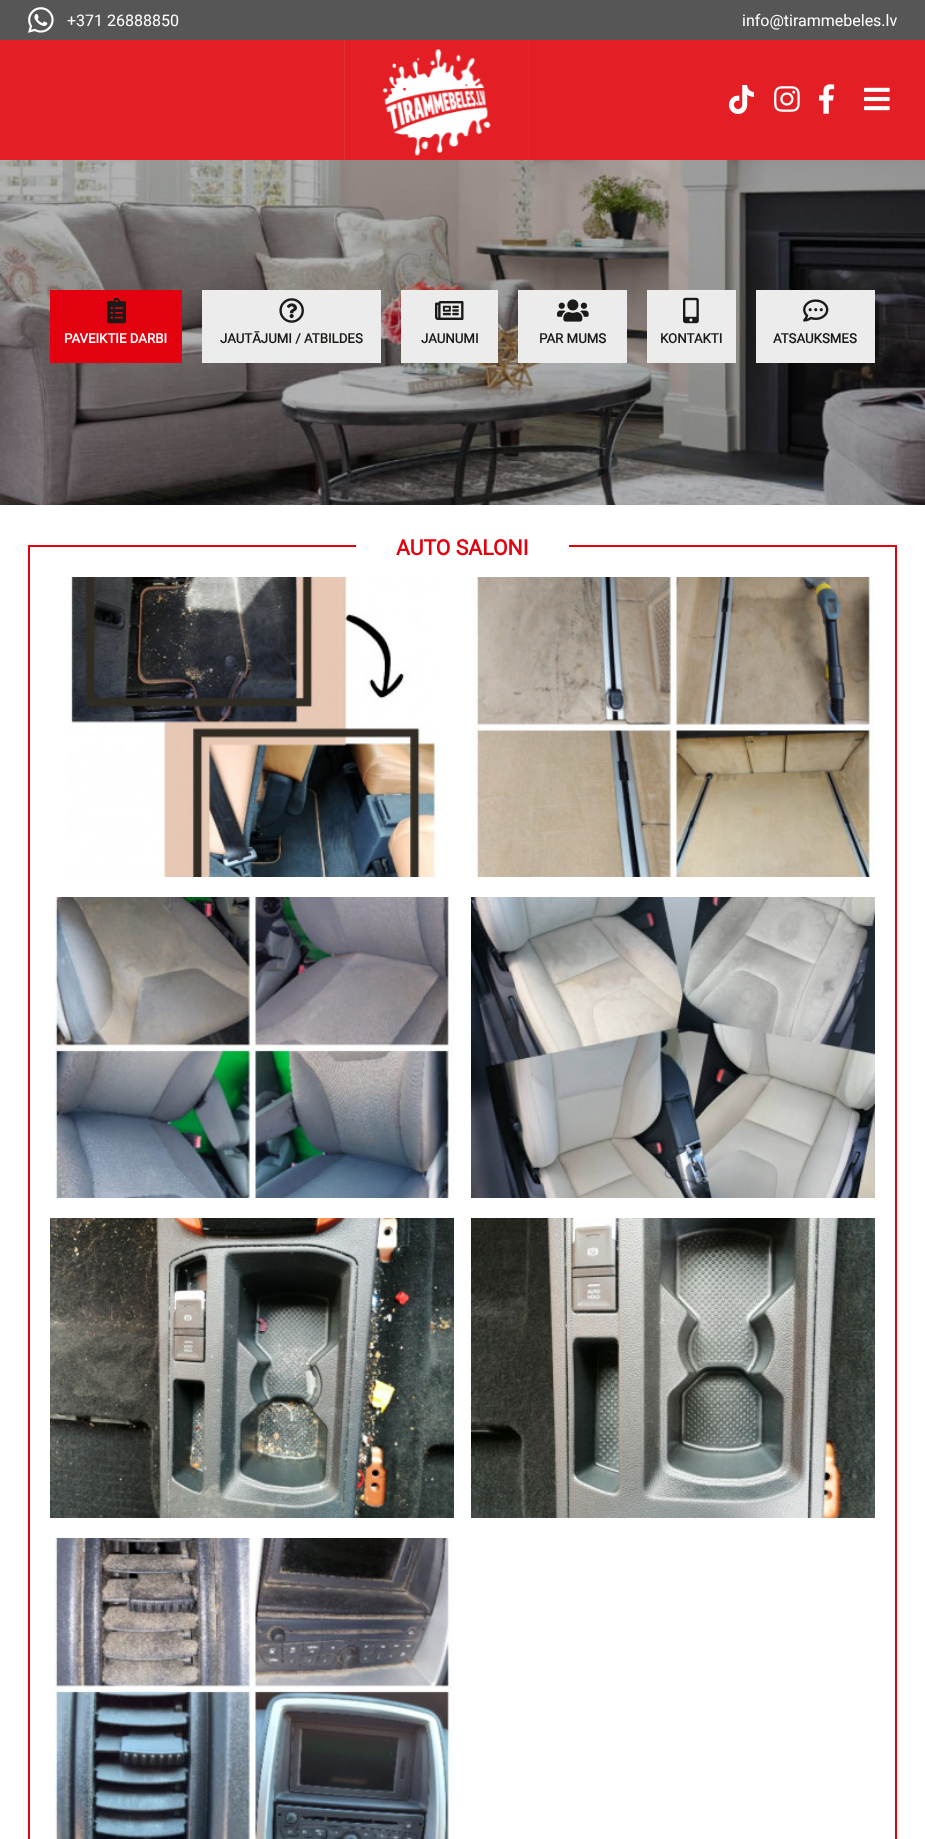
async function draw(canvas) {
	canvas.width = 925;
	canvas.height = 1839;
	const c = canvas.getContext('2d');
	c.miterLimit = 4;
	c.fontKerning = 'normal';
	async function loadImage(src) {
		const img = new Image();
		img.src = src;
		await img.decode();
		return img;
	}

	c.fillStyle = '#fff';
	c.fillRect(0, 0, 925, 1839);
	c.fillStyle = '#e31e24';
	c.fillRect(0, 40, 925, 120);
	c.fillStyle = '#575656';
	c.fillRect(0, 0, 925, 40);
	c.drawImage(await loadImage('img1.png'), 28, 7, 26, 26);
	c.font = '16px Roboto';
	c.fillStyle = '#fff';
	c.fillText('+371 26888850', 67, 26);
	c.fillText('info@tirammebeles.lv', 742, 26);
	c.drawImage(await loadImage('img2.png'), 344, 40, 185, 120);
	c.drawImage(await loadImage('img3.png'), 729, 85, 25, 29);
	c.drawImage(await loadImage('img4.png'), 774, 86, 26, 26);
	c.drawImage(await loadImage('img5.png'), 819, 84, 16, 30);
	c.drawImage(await loadImage('img6.png'), 864, 87, 26, 24);
	c.drawImage(await loadImage('img7.png'), 0, 160, 925, 345);
	c.fillStyle = '#e3000f';
	c.fillRect(50, 290, 132, 73);
	c.drawImage(await loadImage('img8.png'), 107, 297, 19, 27);
	c.font = 'bold 13.25px Roboto';
	c.fillStyle = '#fff';
	c.fillText('PAVEIKTIE DARBI', 64, 343);
	c.fillStyle = '#ececec';
	c.fillRect(202, 290, 179, 73);
	c.drawImage(await loadImage('img9.png'), 279, 298, 25, 25);
	c.fillStyle = '#1a1a18';
	c.fillText('JAUTĀJUMI / ATBILDES', 220, 343);
	c.fillStyle = '#ececec';
	c.fillRect(401, 290, 97, 73);
	c.drawImage(await loadImage('img10.png'), 435, 301, 29, 19);
	c.fillStyle = '#1a1a18';
	c.fillText('JAUNUMI', 421, 343);
	c.fillStyle = '#ececec';
	c.fillRect(518, 290, 109, 73);
	c.drawImage(await loadImage('img11.png'), 557, 299, 32, 23);
	c.fillStyle = '#1a1a18';
	c.fillText('PAR MUMS', 539, 343);
	c.fillStyle = '#ececec';
	c.fillRect(647, 290, 89, 73);
	c.drawImage(await loadImage('img12.png'), 683, 297, 16, 27);
	c.fillStyle = '#1a1a18';
	c.fillText('KONTAKTI', 660, 343);
	c.fillStyle = '#ececec';
	c.fillRect(756, 290, 119, 73);
	c.drawImage(await loadImage('img13.png'), 803, 299, 26, 23);
	c.fillStyle = '#1a1a18';
	c.fillText('ATSAUKSMES', 773, 343);
	c.strokeStyle = '#e3000f';
	c.lineWidth = 2;
	c.strokeRect(29, 546, 867, 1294);
	c.fillStyle = '#fff';
	c.fillRect(356, 545, 213, 2);
	c.font = 'bold 21.25px Roboto';
	c.fillStyle = '#e3000f';
	c.fillText('AUTO SALONI', 396, 555);
	c.drawImage(await loadImage('img14.png'), 68, 577, 370, 300);
	c.drawImage(await loadImage('img15.png'), 471, 577, 404, 300);
	c.drawImage(await loadImage('img16.png'), 50, 897, 404, 301);
	c.drawImage(await loadImage('img17.png'), 471, 897, 404, 301);
	c.drawImage(await loadImage('img18.png'), 50, 1218, 404, 300);
	c.drawImage(await loadImage('img19.png'), 471, 1218, 404, 300);
	c.drawImage(await loadImage('img20.png'), 50, 1538, 404, 301);
}

draw(document.querySelector('canvas'));
